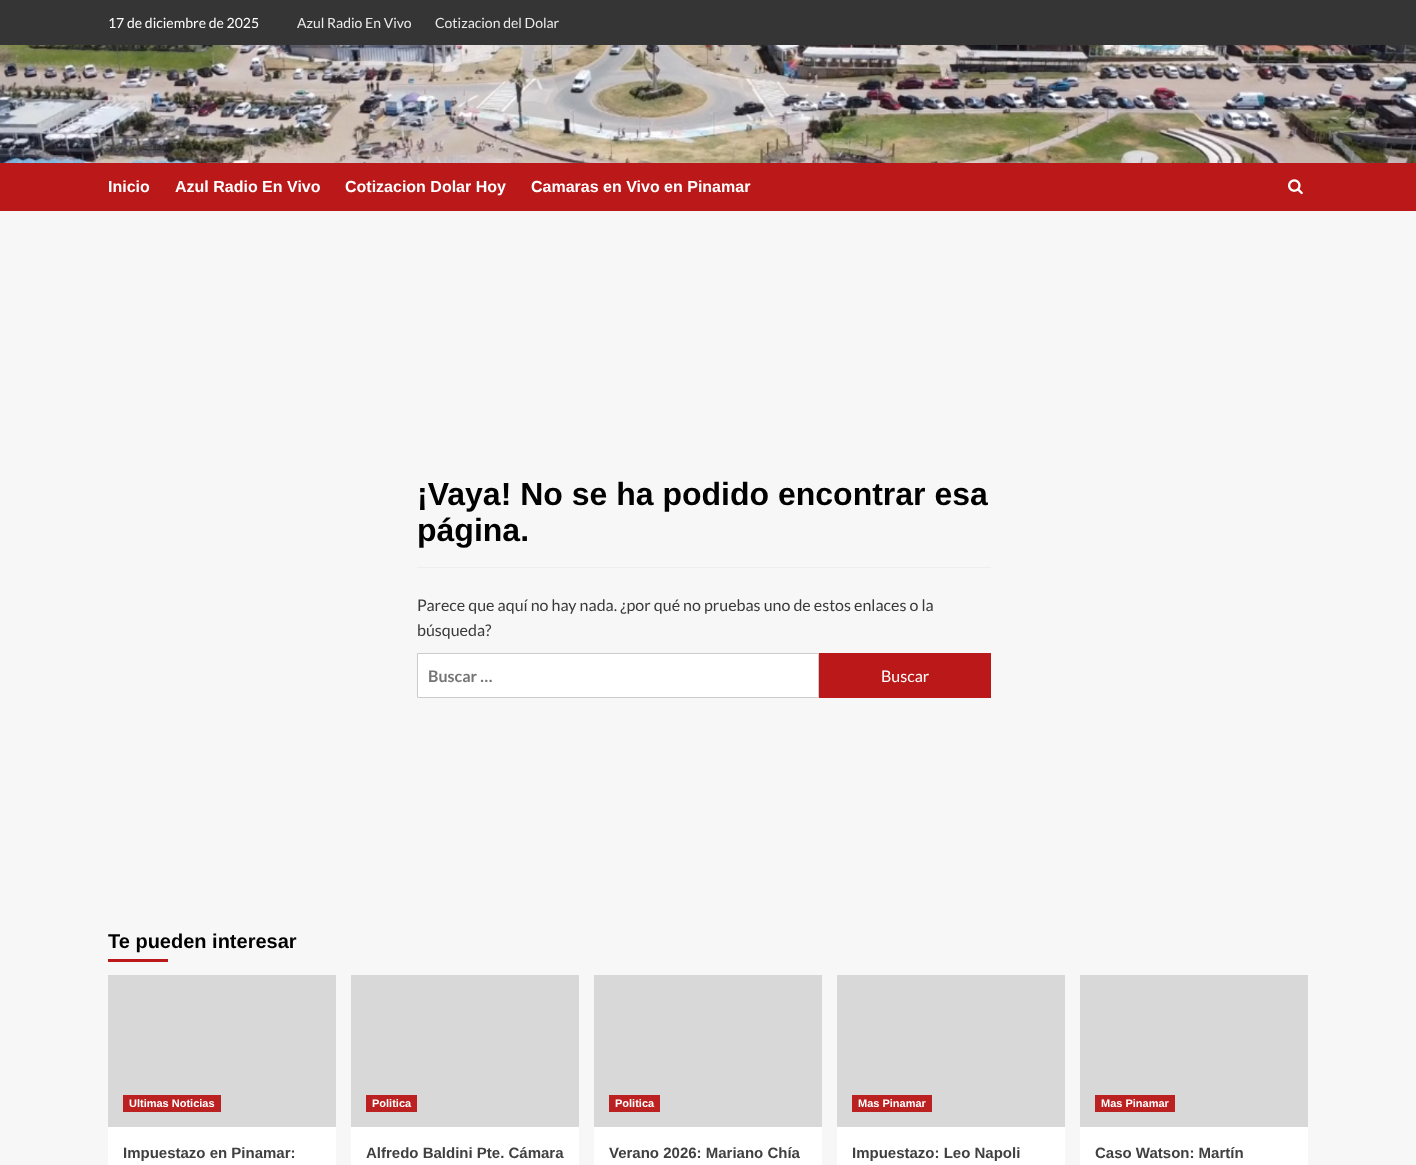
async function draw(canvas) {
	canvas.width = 1416;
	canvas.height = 1165;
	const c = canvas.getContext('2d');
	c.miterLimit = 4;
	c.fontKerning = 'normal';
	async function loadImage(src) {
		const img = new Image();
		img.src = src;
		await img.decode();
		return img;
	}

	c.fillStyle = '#f7f7f7';
	c.fillRect(0, 0, 1416, 1165);
	c.fillStyle = '#353535';
	c.fillRect(0, 0, 1416, 45);
	c.font = '14px Lato';
	c.fillStyle = '#fff';
	c.fillText('17 de diciembre de 2025', 108, 28);
	c.fillStyle = '#ebebeb';
	c.fillText('Azul Radio En Vivo', 297, 28);
	c.fillText('Cotizacion del Dolar', 435, 28);
	c.drawImage(await loadImage('img1.png'), 0, 45, 1416, 118);
	c.fillStyle = '#bb1919';
	c.fillRect(0, 163, 1416, 48);
	c.font = 'bold 16px Liberation Sans';
	c.fillStyle = '#fff';
	for (const [text, x, y] of [
		['Inicio', 108, 192],
		['Azul Radio En Vivo', 175, 192],
		['Cotizacion Dolar Hoy', 345, 192],
		['Camaras en Vivo en Pinamar', 531, 192],
	]) {
		c.fillText(text, x, y);
	}
	c.drawImage(await loadImage('img2.png'), 1288, 179, 15, 16);
	c.fillStyle = '#eee';
	c.fillRect(417, 567, 574, 1);
	c.font = 'bold 32px Liberation Sans';
	c.fillStyle = '#000';
	c.fillText('¡Vaya! No se ha podido encontrar esa', 417, 505);
	c.fillText('página.', 417, 541);
	c.font = '16px Lato';
	c.fillStyle = '#3a3a3a';
	c.fillText('Parece que aquí no hay nada. ¿por qué no pruebas uno de estos enlaces o la', 417, 611);
	c.fillText('búsqueda?', 417, 636);
	c.fillStyle = '#fff';
	c.beginPath();
	c.rect(417.5, 653.5, 401, 44);
	c.fill();
	c.strokeStyle = '#ccc';
	c.stroke();
	c.font = 'bold 16px Lato';
	c.fillStyle = '#757575';
	c.fillText('Buscar …', 428, 682);
	c.fillStyle = '#bb1919';
	c.fillRect(819, 653, 172, 45);
	c.font = '16px Lato';
	c.fillStyle = '#fff';
	c.fillText('Buscar', 881, 682);
	c.font = 'bold 20px Liberation Sans';
	c.fillStyle = '#000';
	c.fillText('Te pueden interesar', 108, 948);
	for (const [x, y, w, h, color] of [
		[108, 959, 60, 3, '#bb1919'],
		[108, 1127, 228, 38, '#fff'],
		[108, 975, 228, 152, '#d8d8d8'],
		[123, 1095, 98, 17, '#bc2121'],
	]) {
		c.fillStyle = color;
		c.fillRect(x, y, w, h);
	}
	c.font = 'bold 11px Liberation Sans';
	c.fillStyle = '#fff';
	c.fillText('Ultimas Noticias', 129, 1107);
	c.font = 'bold 15px Liberation Sans';
	c.fillStyle = '#404040';
	c.fillText('Impuestazo en Pinamar:', 123, 1158);
	for (const [x, y, w, h, color] of [
		[351, 1127, 228, 38, '#fff'],
		[351, 975, 228, 152, '#d8d8d8'],
		[366, 1095, 51, 17, '#bc2121'],
	]) {
		c.fillStyle = color;
		c.fillRect(x, y, w, h);
	}
	c.font = 'bold 11px Liberation Sans';
	c.fillStyle = '#fff';
	c.fillText('Politica', 372, 1107);
	c.font = 'bold 15px Liberation Sans';
	c.fillStyle = '#404040';
	c.fillText('Alfredo Baldini Pte. Cámara', 366, 1158);
	for (const [x, y, w, h, color] of [
		[594, 1127, 228, 38, '#fff'],
		[594, 975, 228, 152, '#d8d8d8'],
		[609, 1095, 51, 17, '#bc2121'],
	]) {
		c.fillStyle = color;
		c.fillRect(x, y, w, h);
	}
	c.font = 'bold 11px Liberation Sans';
	c.fillStyle = '#fff';
	c.fillText('Politica', 615, 1107);
	c.font = 'bold 15px Liberation Sans';
	c.fillStyle = '#404040';
	c.fillText('Verano 2026: Mariano Chía', 609, 1158);
	for (const [x, y, w, h, color] of [
		[837, 1127, 228, 38, '#fff'],
		[837, 975, 228, 152, '#d8d8d8'],
		[852, 1095, 80, 17, '#bc2121'],
	]) {
		c.fillStyle = color;
		c.fillRect(x, y, w, h);
	}
	c.font = 'bold 11px Liberation Sans';
	c.fillStyle = '#fff';
	c.fillText('Mas Pinamar', 858, 1107);
	c.font = 'bold 15px Liberation Sans';
	c.fillStyle = '#404040';
	c.fillText('Impuestazo: Leo Napoli', 852, 1158);
	for (const [x, y, w, h, color] of [
		[1080, 1127, 228, 38, '#fff'],
		[1080, 975, 228, 152, '#d8d8d8'],
		[1095, 1095, 80, 17, '#bc2121'],
	]) {
		c.fillStyle = color;
		c.fillRect(x, y, w, h);
	}
	c.font = 'bold 11px Liberation Sans';
	c.fillStyle = '#fff';
	c.fillText('Mas Pinamar', 1101, 1107);
	c.font = 'bold 15px Liberation Sans';
	c.fillStyle = '#404040';
	c.fillText('Caso Watson: Martín', 1095, 1158);
}

draw(document.querySelector('canvas'));
